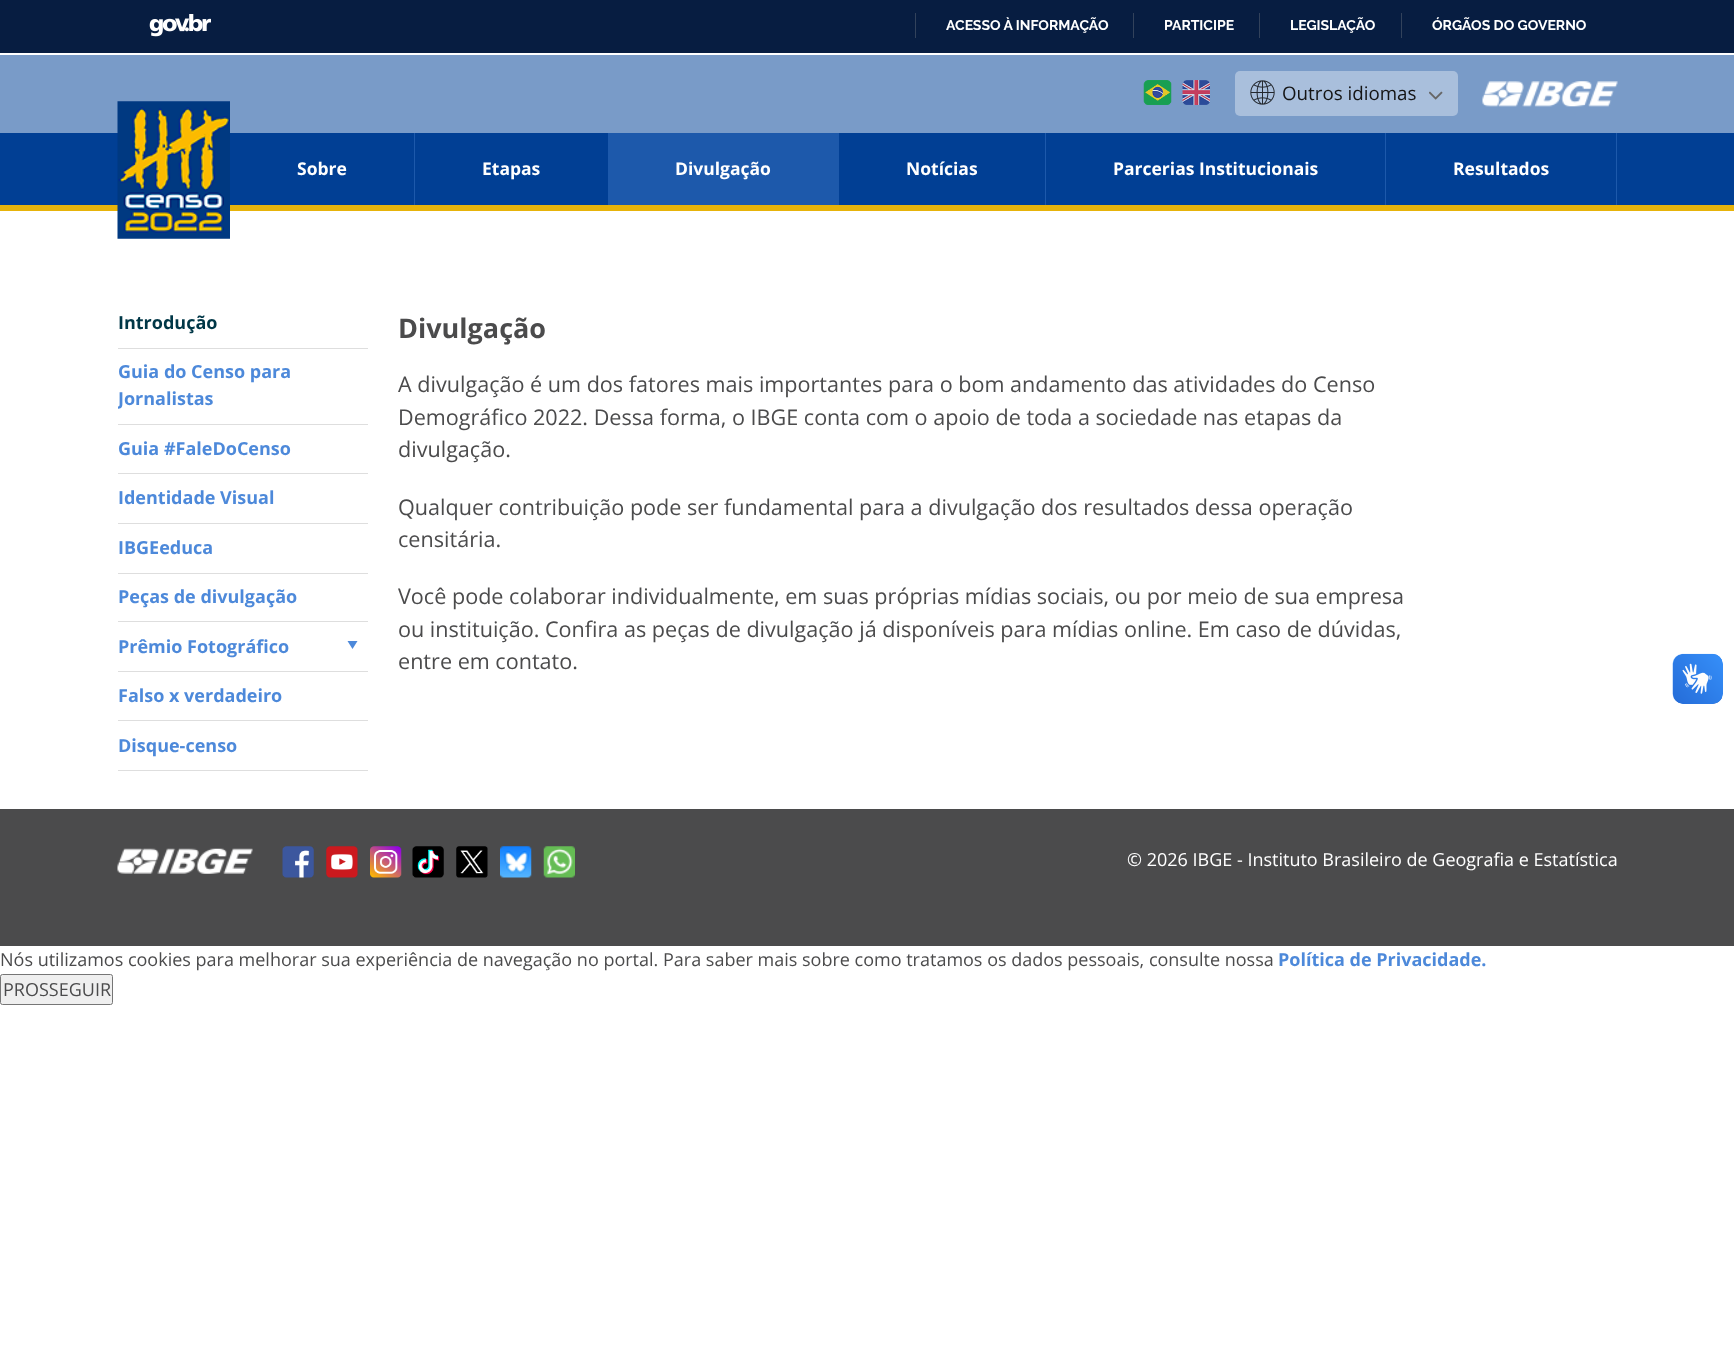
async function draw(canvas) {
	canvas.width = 1734;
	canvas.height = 1357;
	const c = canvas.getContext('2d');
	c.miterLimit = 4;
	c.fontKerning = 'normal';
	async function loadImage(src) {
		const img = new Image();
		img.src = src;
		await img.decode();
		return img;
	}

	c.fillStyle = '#fff';
	c.fillRect(0, 0, 1734, 1357);
	c.fillStyle = '#071d41';
	c.fillRect(0, 0, 1734, 53);
	c.drawImage(await loadImage('img1.png'), 149, 14, 62, 23);
	c.fillStyle = '#32425b';
	c.fillRect(915, 13, 1, 25);
	c.font = 'bold 14px Raleway';
	c.fillStyle = '#fff';
	c.fillText('ACESSO À INFORMAÇÃO', 946, 30);
	c.fillStyle = '#32425b';
	c.fillRect(1133, 13, 1, 25);
	c.fillStyle = '#fff';
	c.fillText('PARTICIPE', 1164, 30);
	c.fillStyle = '#32425b';
	c.fillRect(1259, 13, 1, 25);
	c.fillStyle = '#fff';
	c.fillText('LEGISLAÇÃO', 1290, 30);
	c.fillStyle = '#32425b';
	c.fillRect(1401, 13, 1, 25);
	c.fillStyle = '#fff';
	c.fillText('ÓRGÃOS DO GOVERNO', 1432, 30);
	c.fillStyle = '#799bc8';
	c.fillRect(0, 55, 1734, 78);
	c.drawImage(await loadImage('img2.png'), 1143, 80, 29, 25);
	c.drawImage(await loadImage('img3.png'), 1182, 80, 28, 25);
	c.fillStyle = '#a9bfdc';
	c.beginPath();
	c.roundRect(1235, 71, 223, 45, 5);
	c.fill();
	c.drawImage(await loadImage('img4.png'), 1250, 80, 25, 25);
	c.font = '18.75px Open Sans';
	c.fillStyle = '#141414';
	c.fillText('Outros idiomas', 1282, 100);
	c.drawImage(await loadImage('img5.png'), 1429, 91, 14, 9);
	c.drawImage(await loadImage('img6.png'), 1482, 81, 136, 26);
	c.fillStyle = '#013f94';
	c.fillRect(0, 133, 1734, 72);
	c.fillStyle = '#e7b30a';
	c.fillRect(0, 205, 1734, 6);
	c.drawImage(await loadImage('img7.png'), 117, 101, 113, 138);
	c.font = 'bold 17.5px Open Sans';
	c.fillStyle = '#fff';
	c.fillText('Sobre', 297, 175);
	c.fillStyle = '#1d59ab';
	c.fillRect(414, 133, 1, 72);
	c.fillStyle = '#fff';
	c.fillText('Etapas', 482, 175);
	c.fillStyle = '#1d59ab';
	c.fillRect(608, 133, 231, 72);
	c.fillStyle = '#fff';
	c.fillText('Divulgação', 675, 175);
	c.fillText('Notícias', 906, 175);
	c.fillStyle = '#1d59ab';
	c.fillRect(1045, 133, 1, 72);
	c.fillStyle = '#fff';
	c.fillText('Parcerias Institucionais', 1113, 175);
	c.fillStyle = '#1d59ab';
	c.fillRect(1616, 133, 1, 72);
	c.fillRect(1385, 133, 1, 72);
	c.fillStyle = '#fff';
	c.fillText('Resultados', 1453, 175);
	c.fillStyle = '#dedede';
	c.fillRect(118, 348, 250, 1);
	c.font = 'bold 18px Open Sans';
	c.fillStyle = '#003747';
	c.fillText('Introdução', 118, 329);
	c.fillStyle = '#dedede';
	c.fillRect(118, 424, 250, 1);
	c.fillStyle = '#4d89da';
	c.fillText('Guia do Censo para', 118, 378);
	c.save();
	c.beginPath();
	c.rect(118, 359, 250, 65);
	c.clip();
	c.fillText('Jornalistas', 118, 405);
	c.restore();
	c.fillStyle = '#dedede';
	c.fillRect(118, 473, 250, 1);
	c.fillStyle = '#4d89da';
	c.fillText('Guia #FaleDoCenso', 118, 455);
	c.fillStyle = '#dedede';
	c.fillRect(118, 523, 250, 1);
	c.fillStyle = '#4d89da';
	c.fillText('Identidade Visual', 118, 504);
	c.fillStyle = '#dedede';
	c.fillRect(118, 573, 250, 1);
	c.fillStyle = '#4d89da';
	c.fillText('IBGEeduca', 118, 554);
	c.fillStyle = '#dedede';
	c.fillRect(118, 621, 250, 1);
	c.fillStyle = '#4d89da';
	c.fillText('Peças de divulgação', 118, 603);
	c.fillStyle = '#dedede';
	c.fillRect(118, 671, 250, 1);
	c.fillStyle = '#4d89da';
	c.fillText('Prêmio Fotográfico', 118, 653);
	c.beginPath();
	c.moveTo(347.5, 641);
	c.lineTo(357.5, 641);
	c.lineTo(352.5, 649);
	c.closePath();
	c.fill();
	c.fillStyle = '#dedede';
	c.fillRect(118, 720, 250, 1);
	c.fillStyle = '#4d89da';
	c.fillText('Falso x verdadeiro', 118, 702);
	c.fillStyle = '#dedede';
	c.fillRect(118, 770, 250, 1);
	c.fillStyle = '#4d89da';
	c.fillText('Disque-censo', 118, 752);
	c.font = 'bold 27px Open Sans';
	c.fillStyle = '#4b4b4c';
	c.fillText('Divulgação', 398, 338);
	c.font = '21.6px Open Sans';
	for (const [text, x, y] of [
		['A divulgação é um dos fatores mais importantes para o bom andamento das atividades do Censo', 398, 392],
		['Demográfico 2022. Dessa forma, o IBGE conta com o apoio de toda a sociedade nas etapas da', 398, 425],
		['divulgação.', 398, 457],
		['Qualquer contribuição pode ser fundamental para a divulgação dos resultados dessa operação', 398, 515],
		['censitária.', 398, 547],
		['Você pode colaborar individualmente, em suas próprias mídias sociais, ou por meio de sua empresa', 398, 604],
		['ou instituição. Confira as peças de divulgação já disponíveis para mídias online. Em caso de dúvidas,', 398, 637],
		['entre em contato.', 398, 669],
	]) {
		c.fillText(text, x, y);
	}
	c.drawImage(await loadImage('img8.png'), 1672, 653, 51, 51);
	c.drawImage(await loadImage('img9.png'), 1673, 654, 50, 50);
	c.fillRect(0, 809, 1734, 137);
	c.drawImage(await loadImage('img10.png'), 117, 848, 136, 26);
	c.drawImage(await loadImage('img11.png'), 282, 846, 32, 32);
	c.drawImage(await loadImage('img12.png'), 326, 846, 32, 32);
	c.drawImage(await loadImage('img13.png'), 370, 846, 32, 32);
	c.drawImage(await loadImage('img14.png'), 412, 846, 32, 32);
	c.drawImage(await loadImage('img15.png'), 456, 846, 32, 32);
	c.drawImage(await loadImage('img16.png'), 500, 846, 32, 32);
	c.drawImage(await loadImage('img17.png'), 543, 846, 32, 32);
	c.font = '18px Open Sans';
	c.fillStyle = '#fff';
	c.fillText('© 2026 IBGE - Instituto Brasileiro de Geografia e Estatística', 1127, 866);
	c.fillStyle = '#4b4b4c';
	c.fillText('Nós utilizamos cookies para melhorar sua experiência de navegação no portal. Para saber mais sobre como tratamos os dados pessoais, consulte nossa', 0, 966);
	c.font = 'bold 18px Open Sans';
	c.fillStyle = '#4d89da';
	c.fillText('Política de Privacidade.', 1278, 966);
	c.fillStyle = '#efefef';
	c.beginPath();
	c.roundRect(0.5, 974.5, 112, 30, 2);
	c.fill();
	c.strokeStyle = '#767676';
	c.stroke();
	c.font = '18px Open Sans';
	c.fillStyle = '#4b4b4c';
	c.fillText('PROSSEGUIR', 3, 996);
}

draw(document.querySelector('canvas'));
